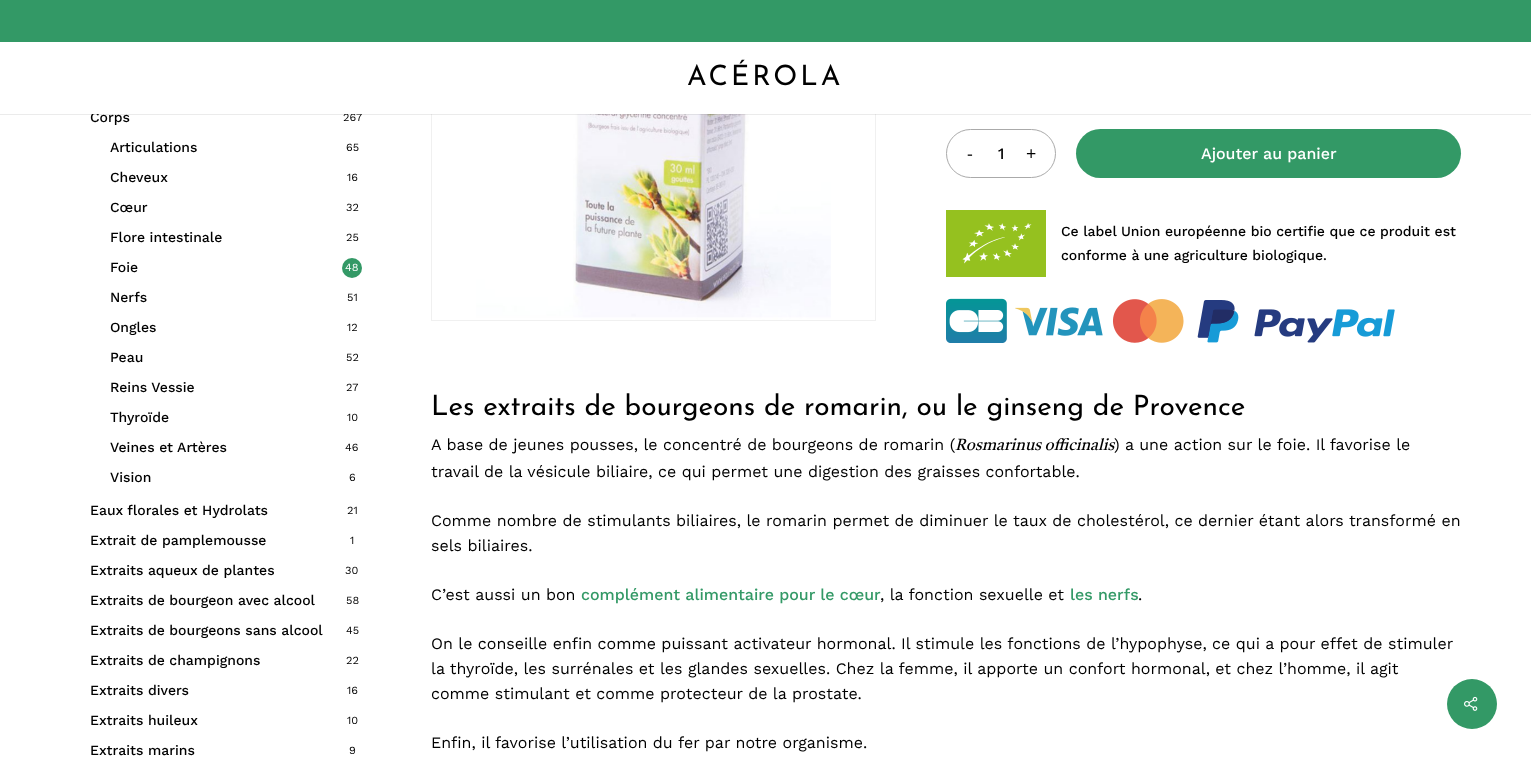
async function draw(canvas) {
	canvas.width = 1531;
	canvas.height = 763;
	const c = canvas.getContext('2d');
	c.miterLimit = 4;
	c.fontKerning = 'normal';
	async function loadImage(src) {
		const img = new Image();
		img.src = src;
		await img.decode();
		return img;
	}

	c.fillStyle = '#fff';
	c.fillRect(0, 0, 1531, 763);
	c.strokeStyle = '#f0f0f0';
	c.strokeRect(431.5, -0.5, 444, 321);
	c.drawImage(await loadImage('img1.png'), 432, 114, 443, 206);
	c.fillStyle = '#00000014';
	c.fillRect(0, 114, 1531, 1);
	c.font = '500 14px Work Sans';
	c.fillStyle = '#000';
	c.fillText('Corps', 90, 122);
	c.font = '11px Work Sans';
	c.fillText('267', 343, 121);
	c.fillStyle = '#fff';
	c.fillRect(92, 42, 784, 72);
	c.fillStyle = '#396';
	c.fillRect(0, 0, 1531, 42);
	c.letterSpacing = '3px';
	c.font = '28px Josefin Sans';
	c.fillStyle = '#000';
	c.fillText('ACÉROLA', 687, 85);
	c.letterSpacing = '0px';
	c.font = '500 14px Work Sans';
	c.fillText('Articulations', 110, 152);
	c.font = '11px Work Sans';
	c.fillText('65', 346, 151);
	c.font = '500 14px Work Sans';
	c.fillText('Cheveux', 110, 182);
	c.font = '11px Work Sans';
	c.fillText('16', 347, 181);
	c.font = '500 14px Work Sans';
	c.fillText('Cœur', 110, 212);
	c.font = '11px Work Sans';
	c.fillText('32', 346, 211);
	c.font = '500 14px Work Sans';
	c.fillText('Flore intestinale', 110, 242);
	c.font = '11px Work Sans';
	c.fillText('25', 346, 241);
	c.font = '500 14px Work Sans';
	c.fillText('Foie', 110, 272);
	c.fillStyle = '#396';
	c.beginPath();
	c.arc(352, 268, 10, 0, 2 * Math.PI);
	c.fill();
	c.font = '11px Work Sans';
	c.fillStyle = '#fff';
	c.fillText('48', 345, 271);
	c.font = '500 14px Work Sans';
	c.fillStyle = '#000';
	c.fillText('Nerfs', 110, 302);
	c.font = '11px Work Sans';
	c.fillText('51', 347, 301);
	c.font = '500 14px Work Sans';
	c.fillText('Ongles', 110, 332);
	c.font = '11px Work Sans';
	c.fillText('12', 347, 331);
	c.font = '500 14px Work Sans';
	c.fillText('Peau', 110, 362);
	c.font = '11px Work Sans';
	c.fillText('52', 346, 361);
	c.font = '500 14px Work Sans';
	c.fillText('Reins Vessie', 110, 392);
	c.font = '11px Work Sans';
	c.fillText('27', 346, 391);
	c.font = '500 14px Work Sans';
	c.fillText('Thyroïde', 110, 422);
	c.font = '11px Work Sans';
	c.fillText('10', 347, 421);
	c.font = '500 14px Work Sans';
	c.fillText('Veines et Artères', 110, 452);
	c.font = '11px Work Sans';
	c.fillText('46', 345, 451);
	c.font = '500 14px Work Sans';
	c.fillText('Vision', 110, 482);
	c.font = '11px Work Sans';
	c.fillText('6', 349, 481);
	c.font = '500 14px Work Sans';
	c.fillText('Eaux florales et Hydrolats', 90, 515);
	c.font = '11px Work Sans';
	c.fillText('21', 347, 514);
	c.font = '500 14px Work Sans';
	c.fillText('Extrait de pamplemousse', 90, 545);
	c.font = '11px Work Sans';
	c.fillText('1', 350, 544);
	c.font = '500 14px Work Sans';
	c.fillText('Extraits aqueux de plantes', 90, 575);
	c.font = '11px Work Sans';
	c.fillText('30', 345, 574);
	c.font = '500 14px Work Sans';
	c.fillText('Extraits de bourgeon avec alcool', 90, 605);
	c.font = '11px Work Sans';
	c.fillText('58', 346, 604);
	c.font = '500 14px Work Sans';
	c.fillText('Extraits de bourgeons sans alcool', 90, 635);
	c.font = '11px Work Sans';
	c.fillText('45', 346, 634);
	c.font = '500 14px Work Sans';
	c.fillText('Extraits de champignons', 90, 665);
	c.font = '11px Work Sans';
	c.fillText('22', 346, 664);
	c.font = '500 14px Work Sans';
	c.fillText('Extraits divers', 90, 695);
	c.font = '11px Work Sans';
	c.fillText('16', 347, 694);
	c.font = '500 14px Work Sans';
	c.fillText('Extraits huileux', 90, 725);
	c.font = '11px Work Sans';
	c.fillText('10', 347, 724);
	c.font = '500 14px Work Sans';
	c.fillText('Extraits marins', 90, 755);
	c.font = '11px Work Sans';
	c.fillText('9', 349, 754);
	c.beginPath();
	c.roundRect(946.5, 129.5, 109, 48, 24);
	c.strokeStyle = '#aaa';
	c.stroke();
	c.font = '18px Open Sans';
	c.fillText('-', 967, 160);
	c.font = '500 16px Work Sans';
	c.fillText('1', 998, 159);
	c.font = '18px Open Sans';
	c.fillText('+', 1026, 160);
	c.fillStyle = '#396';
	c.beginPath();
	c.roundRect(1076, 129, 385, 49, 24.5);
	c.fill();
	c.font = '500 16px Work Sans';
	c.fillStyle = '#fff';
	c.fillText('Ajouter au panier', 1201, 159);
	c.drawImage(await loadImage('img2.png'), 946, 210, 100, 67);
	c.font = '500 14px Work Sans';
	c.fillStyle = '#000';
	c.fillText('Ce label Union européenne bio certifie que ce produit est', 1061, 236);
	c.fillText('conforme à une agriculture biologique.', 1061, 260);
	c.drawImage(await loadImage('img3.png'), 946, 298, 449, 45);
	c.font = '28px Josefin Sans';
	c.fillText('Les extraits de bourgeons de romarin, ou le ginseng de Provence', 431, 415);
	c.font = '16px Work Sans';
	c.fillText('A base de jeunes pousses, le concentré de bourgeons de romarin (', 431, 450);
	c.font = 'italic 16px Castoro';
	c.fillText('Rosmarinus officinalis', 955, 450);
	c.font = '16px Work Sans';
	for (const [text, x, y] of [
		[') a une action sur le foie. Il favorise le', 1114, 450],
		['travail de la vésicule biliaire, ce qui permet une digestion des graisses confortable.', 431, 477],
		['Comme nombre de stimulants biliaires, le romarin permet de diminuer le taux de cholestérol, ce dernier étant alors transformé en', 431, 526],
		['sels biliaires.', 431, 551],
		['C’est aussi un bon', 431, 600],
	]) {
		c.fillText(text, x, y);
	}
	c.font = '500 16px Work Sans';
	c.fillStyle = '#396';
	c.fillText('complément alimentaire pour le cœur', 581, 600);
	c.font = '16px Work Sans';
	c.fillStyle = '#000';
	c.fillText(', la fonction sexuelle et', 880, 600);
	c.font = '500 16px Work Sans';
	c.fillStyle = '#396';
	c.fillText('les nerfs', 1070, 600);
	c.font = '16px Work Sans';
	c.fillStyle = '#000';
	for (const [text, x, y] of [
		['.', 1138, 600],
		['On le conseille enfin comme puissant activateur hormonal. Il stimule les fonctions de l’hypophyse, ce qui a pour effet de stimuler', 431, 649],
		['la thyroïde, les surrénales et les glandes sexuelles. Chez la femme, il apporte un confort hormonal, et chez l’homme, il agit', 431, 674],
		['comme stimulant et comme protecteur de la prostate.', 431, 699],
		['Enfin, il favorise l’utilisation du fer par notre organisme.', 431, 748],
	]) {
		c.fillText(text, x, y);
	}
	c.fillStyle = '#396';
	c.beginPath();
	c.arc(1472, 704, 25, 0, 2 * Math.PI);
	c.fill();
	c.drawImage(await loadImage('img4.png'), 1464, 696, 14, 15);
}

draw(document.querySelector('canvas'));
